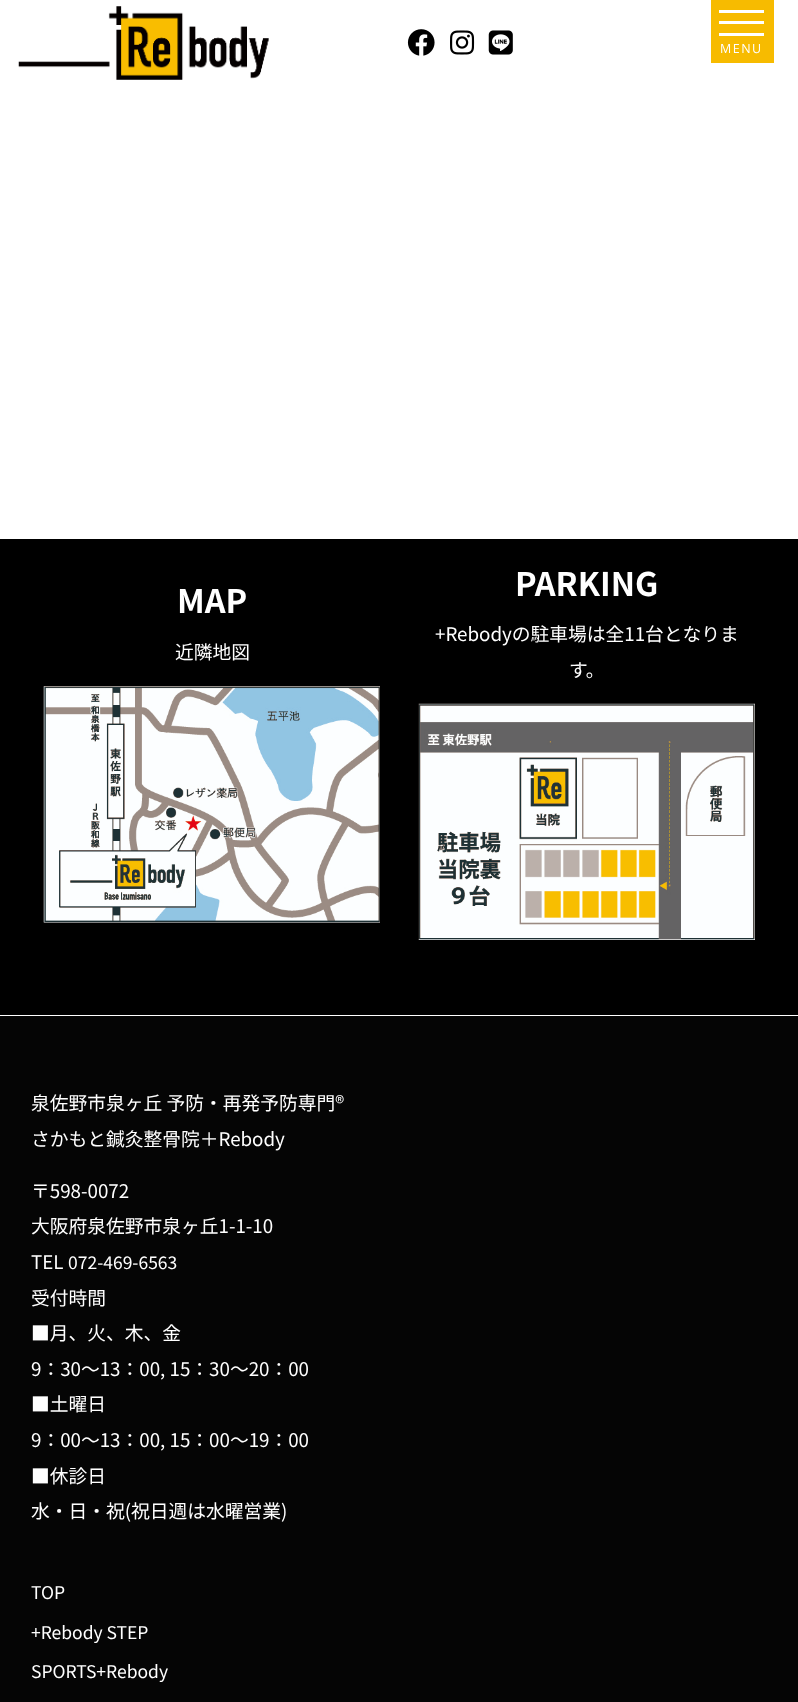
async function draw(canvas) {
	canvas.width = 798;
	canvas.height = 1702;
	const c = canvas.getContext('2d');
	c.miterLimit = 4;
	c.fontKerning = 'normal';
	async function loadImage(src) {
		const img = new Image();
		img.src = src;
		await img.decode();
		return img;
	}

	c.fillStyle = '#fff';
	c.fillRect(0, 0, 798, 1702);
	c.drawImage(await loadImage('img1.png'), 18, 6, 251, 74);
	c.drawImage(await loadImage('img2.png'), 407, 29, 28, 27);
	c.drawImage(await loadImage('img3.png'), 450, 30, 25, 25);
	c.drawImage(await loadImage('img4.png'), 488, 30, 25, 25);
	for (const [x, y, w, h, color] of [
		[711, 0, 63, 63, '#f7bb00'],
		[719, 10, 45, 3, '#fff'],
		[719, 21, 45, 3, '#fff'],
		[719, 33, 45, 3, '#fff'],
	]) {
		c.fillStyle = color;
		c.fillRect(x, y, w, h);
	}
	c.letterSpacing = '1.5px';
	c.font = '12.5px Open Sans';
	c.fillText('MENU', 720, 53);
	c.fillStyle = '#000';
	c.fillRect(0, 539, 798, 476);
	c.letterSpacing = '0px';
	c.font = 'bold 32.5px Noto Sans JP';
	c.fillStyle = '#fff';
	c.fillText('MAP', 177, 613);
	c.font = '18.75px Noto Sans JP';
	c.fillText('近隣地図', 175, 659);
	c.drawImage(await loadImage('img5.png'), 43, 686, 337, 237);
	c.font = 'bold 32.5px Noto Sans JP';
	c.fillText('PARKING', 515, 596);
	c.font = '18.75px Noto Sans JP';
	c.fillText('+Rebodyの駐車場は全11台となりま', 435, 641);
	c.fillText('す。', 569, 677);
	c.drawImage(await loadImage('img6.png'), 418, 703, 337, 237);
	c.fillStyle = '#050505';
	c.fillRect(0, 1016, 798, 686);
	c.fillStyle = '#fff';
	for (const [text, x, y] of [
		['泉佐野市泉ヶ丘 予防・再発予防専門®', 31, 1110],
		['さかもと鍼灸整骨院＋Rebody', 31, 1146],
		['〒598-0072', 31, 1198],
		['大阪府泉佐野市泉ヶ丘1-1-10', 31, 1233],
		['TEL', 31, 1269],
	]) {
		c.fillText(text, x, y);
	}
	c.font = '17.5px Noto Sans JP';
	c.fillText('072-469-6563', 68, 1269);
	c.font = '18.75px Noto Sans JP';
	for (const [text, x, y] of [
		['受付時間', 31, 1305],
		['■月、火、木、金', 31, 1340],
		['9：30〜13：00, 15：30〜20：00', 31, 1376],
		['■土曜日', 31, 1411],
		['9：00〜13：00, 15：00〜19：00', 31, 1447],
		['■休診日', 31, 1483],
		['水・日・祝(祝日週は水曜営業)', 31, 1518],
	]) {
		c.fillText(text, x, y);
	}
	c.font = '17.5px Noto Sans JP';
	for (const [text, x, y] of [
		['TOP', 31, 1599],
		['+Rebody STEP', 31, 1639],
		['SPORTS+Rebody', 31, 1678],
	]) {
		c.fillText(text, x, y);
	}
}

draw(document.querySelector('canvas'));
